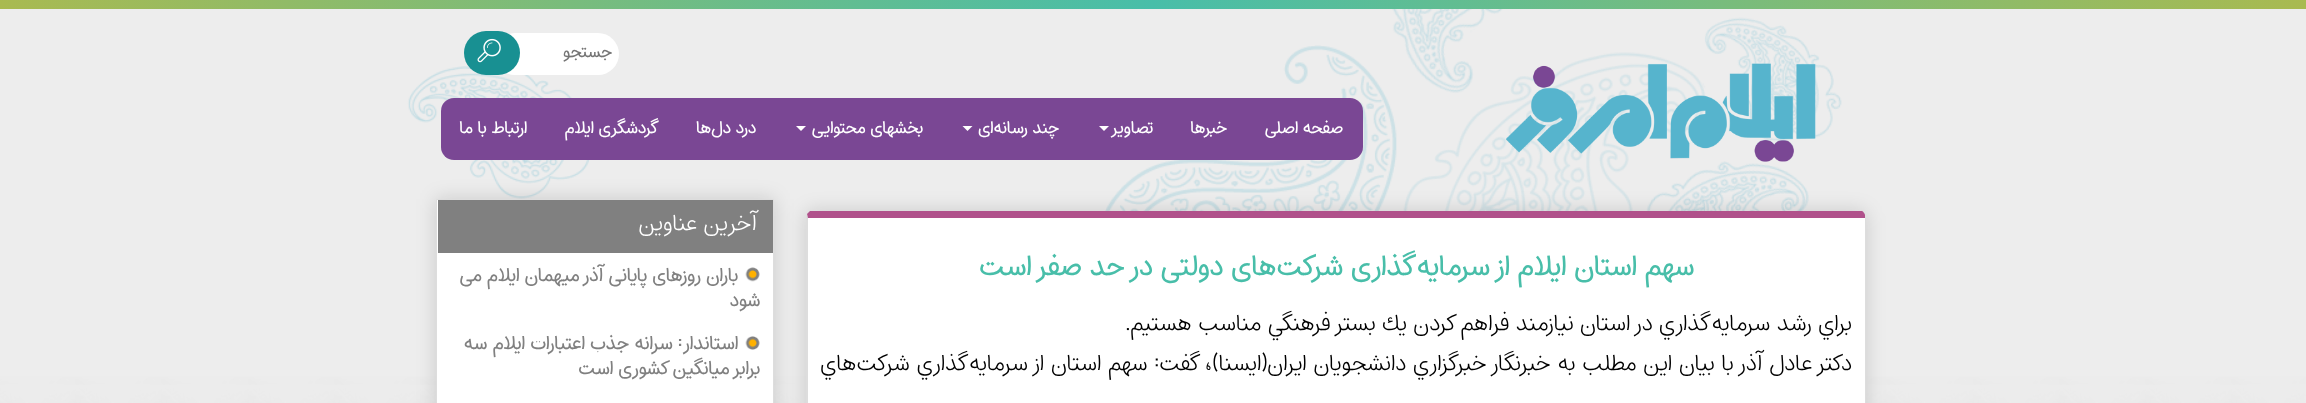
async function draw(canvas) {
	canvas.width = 2306;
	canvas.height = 403;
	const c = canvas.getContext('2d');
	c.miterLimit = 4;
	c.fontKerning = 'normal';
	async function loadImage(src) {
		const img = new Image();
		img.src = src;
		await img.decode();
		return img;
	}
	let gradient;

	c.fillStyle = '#fff';
	c.fillRect(0, 0, 2306, 403);
	c.drawImage(await loadImage('img1.png'), 0, 9, 2306, 394);
	gradient = c.createLinearGradient(0, 4.4, 2306, 4.4);
	gradient.addColorStop(0, '#a9ba51');
	gradient.addColorStop(0.5, '#48bea9');
	gradient.addColorStop(1, '#a9ba50');
	c.fillStyle = gradient;
	c.fillRect(0, 0, 2306, 9);
	c.fillStyle = '#fff';
	c.beginPath();
	c.roundRect(494, 33, 125, 42, 21);
	c.fill();
	c.direction = 'rtl';
	c.font = 'bold 15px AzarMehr';
	c.fillStyle = '#757575';
	c.fillText('جستجو', 612, 57);
	c.fillStyle = '#189092';
	c.beginPath();
	c.roundRect(464, 31, 56, 44, 22);
	c.fill();
	c.drawImage(await loadImage('img2.png'), 477, 38, 24, 25);
	c.drawImage(await loadImage('img3.png'), 1506, 63, 310, 99);
	c.fillStyle = '#7a4794';
	c.beginPath();
	c.roundRect(441, 98, 922, 62, 13);
	c.fill();
	c.fillStyle = '#fff';
	for (const [text, x, y] of [
		['صفحه اصلی', 1343, 133],
		['خبرها', 1227, 133],
		['تصاویر', 1153, 133],
	]) {
		c.fillText(text, x, y);
	}
	c.beginPath();
	c.moveTo(1099, 126);
	c.lineTo(1109, 126);
	c.lineTo(1104, 131);
	c.closePath();
	c.fill();
	c.fillText('چند رسانه‌ای', 1059, 133);
	c.beginPath();
	c.moveTo(962.5, 126);
	c.lineTo(972.5, 126);
	c.lineTo(967.5, 131);
	c.closePath();
	c.fill();
	c.fillText('بخشهای محتوایی', 923, 133);
	c.beginPath();
	c.moveTo(796, 126);
	c.lineTo(806, 126);
	c.lineTo(801, 131);
	c.closePath();
	c.fill();
	for (const [text, x, y] of [
		['درد دل‌ها', 756, 133],
		['گردشگری ایلام', 659, 133],
		['ارتباط با ما', 527, 133],
	]) {
		c.fillText(text, x, y);
	}
	c.fillStyle = '#00000026';
	c.filter = 'blur(9.5px)';
	c.beginPath();
	c.roundRect(806, 211, 1060, 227, 6);
	c.fill();
	c.filter = 'none';
	c.fillStyle = '#fff';
	c.beginPath();
	c.moveTo(812, 218);
	c.lineTo(1865, 218);
	c.lineTo(1865, 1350);
	c.lineTo(808, 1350);
	c.lineTo(808, 218);
	c.closePath();
	c.fill();
	c.fillStyle = '#b0518b';
	c.beginPath();
	c.moveTo(807, 214);
	c.lineTo(810, 211);
	c.lineTo(1862, 211);
	c.bezierCurveTo(1863, 211, 1865, 214, 1865, 215);
	c.lineTo(1865, 218);
	c.lineTo(808, 218);
	c.lineTo(808, 220);
	c.closePath();
	c.fill();
	c.fillStyle = '#ddd';
	c.beginPath();
	c.moveTo(1865, 215);
	c.lineTo(1866, 218);
	c.lineTo(1866, 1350);
	c.lineTo(1865, 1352);
	c.lineTo(1865, 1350);
	c.lineTo(1865, 218);
	c.closePath();
	c.fill();
	c.beginPath();
	c.moveTo(806, 216);
	c.lineTo(807, 214);
	c.lineTo(808, 220);
	c.lineTo(808, 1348);
	c.lineTo(807, 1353);
	c.lineTo(806, 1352);
	c.closePath();
	c.fill();
	c.font = 'bold 25px AzarMehr';
	c.fillStyle = '#48bea9';
	c.fillText('سهم استان ایلام از سرمایه‌گذاری شرکت‌های دولتی در حد صفر است', 1694, 275);
	c.font = '300 20px AzarMehr';
	c.fillStyle = '#000';
	c.fillText('براي رشد سرمايه‌گذاري در استان نيازمند فراهم كردن يك بستر فرهنگي مناسب هستيم.', 1852, 330);
	c.wordSpacing = '0.5px';
	c.fillText('دكتر عادل آذر با بيان اين مطلب به خبرنگار خبرگزاري دانشجويان ايران(ايسنا)، گفت: سهم استان از سرمايه‌گذاري شركت‌هاي', 1852, 370);
	c.fillStyle = '#00000026';
	c.filter = 'blur(9.5px)';
	c.beginPath();
	c.rect(436, 199, 338, 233);
	c.fill();
	c.filter = 'none';
	c.fillStyle = '#fff';
	c.beginPath();
	c.rect(436.5, 199.5, 337, 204);
	c.fill();
	c.strokeStyle = '#ddd';
	c.stroke();
	c.fillStyle = '#808080';
	c.fillRect(438, 200, 335, 53);
	c.wordSpacing = '0px';
	c.fillStyle = '#fff';
	c.fillText('آخرین عناوین', 757, 230);
	c.drawImage(await loadImage('img4.png'), 745, 267, 15, 15);
	c.font = 'bold 16.7px AzarMehr';
	c.fillStyle = '#808080';
	c.fillText('باران روزهای پایانی آذر میهمان ایلام می', 738, 281);
	c.fillText('شود', 760, 306);
	c.drawImage(await loadImage('img5.png'), 745, 336, 15, 14);
	c.fillText('استاندار: سرانه جذب اعتبارات ایلام سه', 738, 349);
	c.fillText('برابر میانگین کشوری است', 760, 374);
}

draw(document.querySelector('canvas'));
